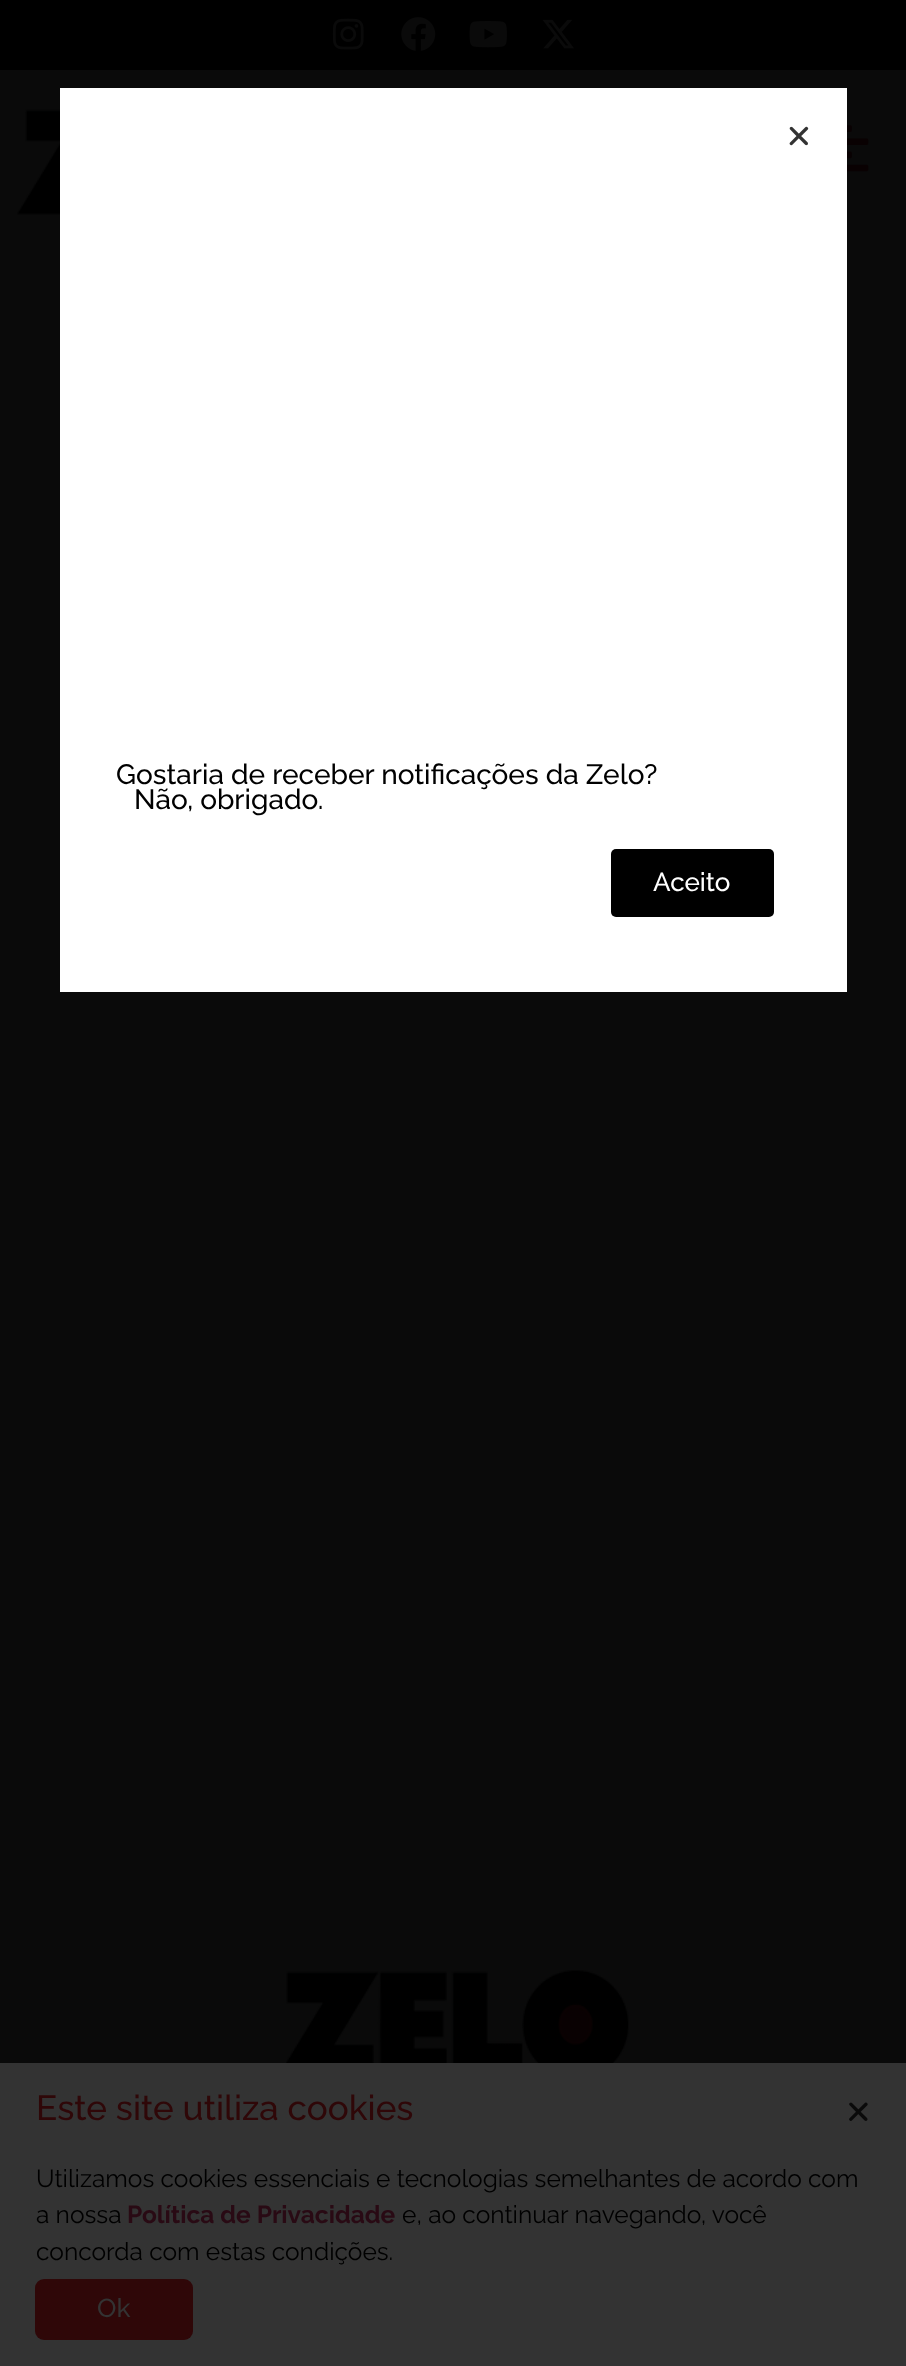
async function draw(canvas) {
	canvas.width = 906;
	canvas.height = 2366;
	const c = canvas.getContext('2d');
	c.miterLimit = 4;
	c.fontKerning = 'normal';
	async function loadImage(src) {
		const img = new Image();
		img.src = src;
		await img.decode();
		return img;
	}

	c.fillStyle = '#0a0a0a';
	c.fillRect(0, 0, 906, 2366);
	c.fillStyle = '#000';
	c.fillRect(0, 0, 906, 70);
	c.drawImage(await loadImage('img1.png'), 332, 18, 32, 32);
	c.drawImage(await loadImage('img2.png'), 401, 17, 35, 34);
	c.drawImage(await loadImage('img3.png'), 469, 21, 38, 27);
	c.drawImage(await loadImage('img4.png'), 542, 19, 32, 30);
	c.drawImage(await loadImage('img5.png'), 17, 109, 43, 106);
	c.drawImage(await loadImage('img6.png'), 847, 125, 22, 47);
	c.fillStyle = '#fff';
	c.fillRect(60, 88, 787, 904);
	c.drawImage(await loadImage('img7.png'), 789, 126, 20, 20);
	c.font = '500 28px Raleway';
	c.fillStyle = '#000';
	c.fillText('Gostaria de receber notificações da Zelo?', 116, 784);
	c.fillText('Não, obrigado.', 134, 809);
	c.beginPath();
	c.roundRect(611, 849, 163, 68, 5);
	c.fill();
	c.font = '500 26px Raleway';
	c.fillStyle = '#fff';
	c.fillText('Aceito', 653, 891);
	c.drawImage(await loadImage('img8.png'), 286, 1970, 343, 93);
	c.fillStyle = '#333';
	c.fillRect(0, 2063, 906, 303);
	c.font = '500 35px Raleway';
	c.fillStyle = '#2f0708';
	c.fillText('Este site utiliza cookies', 36, 2120);
	c.font = '24.5px Raleway';
	c.fillStyle = '#000';
	c.fillText('Utilizamos cookies essenciais e tecnologias semelhantes de acordo com', 36, 2187);
	c.fillText('a nossa', 36, 2223);
	c.font = 'bold 24.5px Raleway';
	c.fillStyle = '#290a14';
	c.fillText('Política de Privacidade', 127, 2223);
	c.font = '24.5px Raleway';
	c.fillStyle = '#000';
	c.fillText('e, ao continuar navegando, você', 402, 2223);
	c.fillText('concorda com estas condições.', 36, 2260);
	c.fillStyle = '#2f0708';
	c.beginPath();
	c.roundRect(35, 2279, 158, 61, 9);
	c.fill();
	c.font = '500 26px Raleway';
	c.fillStyle = '#333';
	c.fillText('Ok', 97, 2317);
	c.drawImage(await loadImage('img9.png'), 849, 2102, 19, 19);
}

draw(document.querySelector('canvas'));
